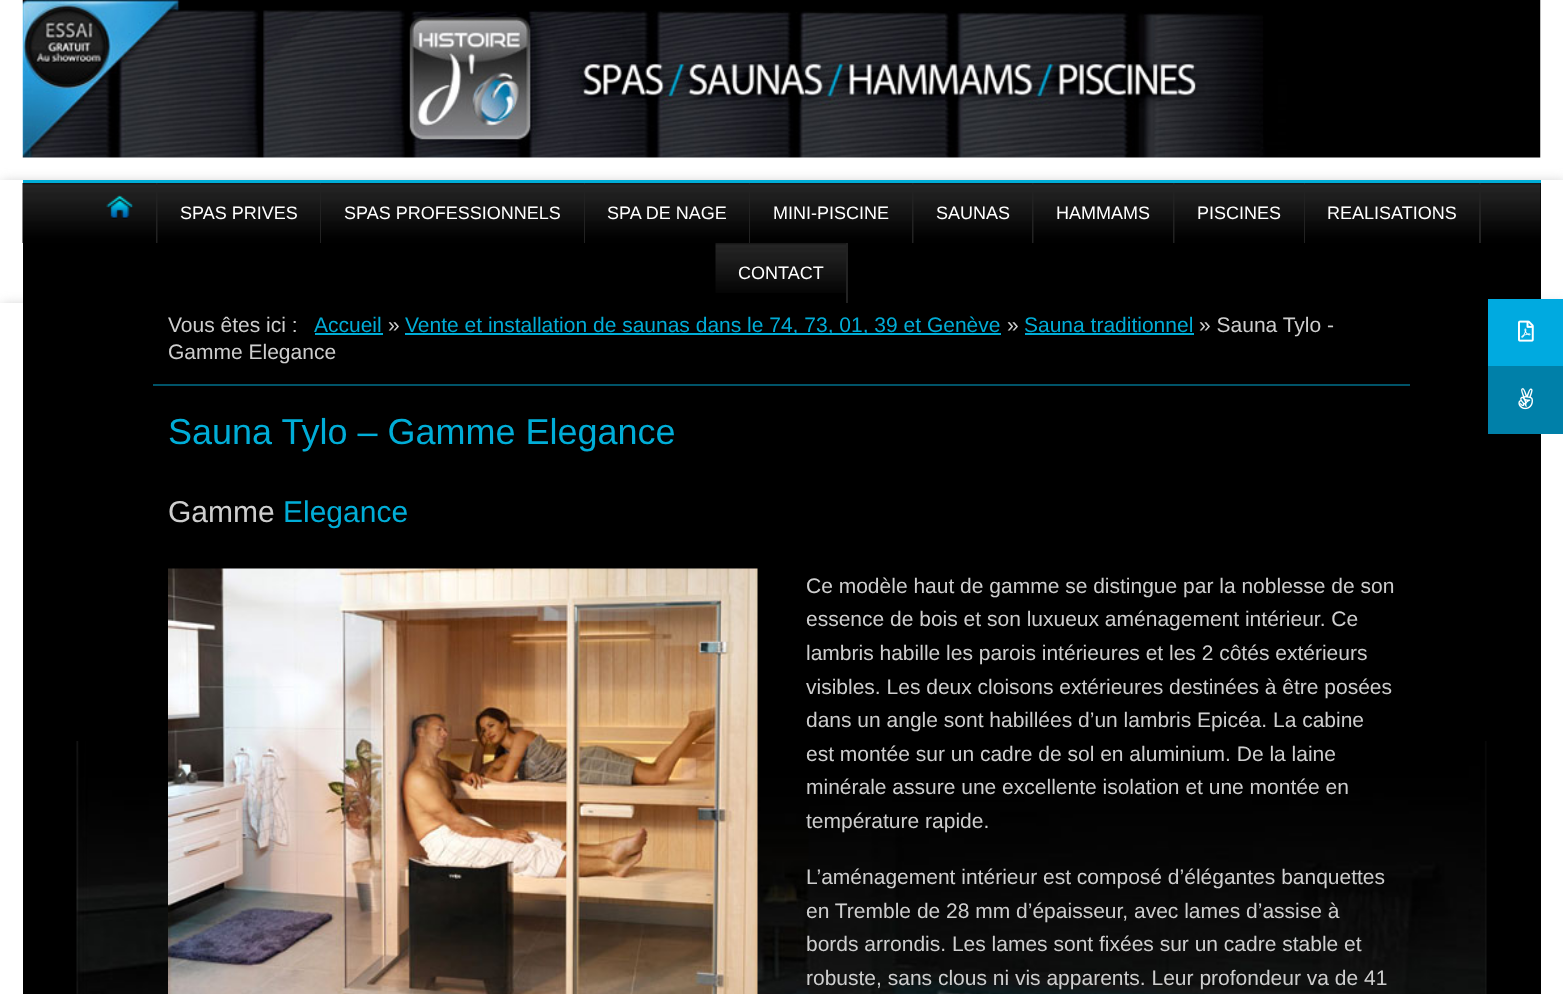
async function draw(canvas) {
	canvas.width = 1563;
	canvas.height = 994;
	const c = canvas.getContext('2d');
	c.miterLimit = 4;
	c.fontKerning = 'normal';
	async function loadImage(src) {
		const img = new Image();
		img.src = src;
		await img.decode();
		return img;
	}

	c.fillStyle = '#fff';
	c.fillRect(0, 0, 1563, 994);
	c.drawImage(await loadImage('img1.png'), 22, 0, 1519, 158);
	c.fillStyle = '#c7c7c7';
	c.filter = 'blur(6px)';
	c.beginPath();
	c.rect(2, 182, 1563, 123);
	c.fill();
	c.filter = 'none';
	c.fillStyle = '#fff';
	c.fillRect(0, 180, 1563, 123);
	c.fillStyle = '#c7c7c7';
	c.filter = 'blur(6px)';
	c.beginPath();
	c.rect(2, 305, 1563, 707);
	c.fill();
	c.filter = 'none';
	c.fillStyle = '#000';
	c.fillRect(23, 183, 1518, 811);
	c.drawImage(await loadImage('img2.png'), 22, 183, 1519, 60);
	c.fillStyle = '#00add7';
	c.fillRect(23, 180, 1518, 3);
	c.fillStyle = '#222';
	c.fillRect(156, 183, 2, 60);
	c.drawImage(await loadImage('img3.png'), 106, 195, 28, 24);
	c.drawImage(await loadImage('img4.png'), 157, 183, 1, 60);
	c.fillRect(320, 183, 1, 60);
	c.font = '18px Liberation Sans';
	c.fillStyle = '#fff';
	c.fillText('SPAS PRIVES', 180, 219);
	c.drawImage(await loadImage('img5.png'), 321, 183, 1, 60);
	c.fillStyle = '#222';
	c.fillRect(584, 183, 1, 60);
	c.fillStyle = '#fff';
	c.fillText('SPAS PROFESSIONNELS', 344, 219);
	c.drawImage(await loadImage('img5.png'), 585, 183, 1, 60);
	c.fillStyle = '#222';
	c.fillRect(749, 183, 1, 60);
	c.fillStyle = '#fff';
	c.fillText('SPA DE NAGE', 607, 219);
	c.drawImage(await loadImage('img5.png'), 750, 183, 1, 60);
	c.fillStyle = '#222';
	c.fillRect(912, 183, 2, 60);
	c.fillStyle = '#fff';
	c.fillText('MINI-PISCINE', 773, 219);
	c.drawImage(await loadImage('img4.png'), 913, 183, 1, 60);
	c.fillStyle = '#222';
	c.fillRect(1032, 183, 2, 60);
	c.fillStyle = '#fff';
	c.fillText('SAUNAS', 936, 219);
	c.drawImage(await loadImage('img4.png'), 1033, 183, 1, 60);
	c.fillStyle = '#222';
	c.fillRect(1173, 183, 2, 60);
	c.fillStyle = '#fff';
	c.fillText('HAMMAMS', 1056, 219);
	c.drawImage(await loadImage('img4.png'), 1174, 183, 1, 60);
	c.fillStyle = '#222';
	c.fillRect(1304, 183, 1, 60);
	c.fillStyle = '#fff';
	c.fillText('PISCINES', 1197, 219);
	c.drawImage(await loadImage('img5.png'), 1305, 183, 1, 60);
	c.fillStyle = '#222';
	c.fillRect(1479, 183, 2, 60);
	c.fillStyle = '#fff';
	c.fillText('REALISATIONS', 1327, 219);
	c.drawImage(await loadImage('img6.png'), 715, 243, 131, 50);
	c.fillStyle = '#222';
	c.fillRect(846, 243, 2, 60);
	c.fillStyle = '#fff';
	c.fillText('CONTACT', 738, 279);
	c.drawImage(await loadImage('img7.png'), 76, 741, 1411, 253);
	for (const [x, y, w, h, color] of [
		[1541, 434, 22, 560, '#fff'],
		[0, 303, 23, 691, '#fff'],
		[153, 384, 1257, 2, '#005368'],
	]) {
		c.fillStyle = color;
		c.fillRect(x, y, w, h);
	}
	c.font = '21px Liberation Sans';
	c.fillStyle = '#cecece';
	c.fillText('Vous êtes ici :', 168, 332);
	c.fillStyle = '#00add7';
	c.fillText('Accueil', 314, 332);
	c.fillRect(315, 333, 68, 2);
	c.fillStyle = '#cecece';
	c.fillText('»', 388, 332);
	c.fillStyle = '#00add7';
	c.fillRect(405, 333, 596, 2);
	c.fillText('Vente et installation de saunas dans le 74, 73, 01, 39 et Genève', 405, 332);
	c.fillStyle = '#cecece';
	c.fillText('»', 1007, 332);
	c.fillStyle = '#00add7';
	c.fillText('Sauna traditionnel', 1024, 332);
	c.fillRect(1025, 333, 169, 2);
	c.fillStyle = '#cecece';
	c.fillText('» Sauna Tylo -', 1199, 332);
	c.fillText('Gamme Elegance', 168, 359);
	c.font = '36px Liberation Sans';
	c.fillStyle = '#00add7';
	c.fillText('Sauna Tylo – Gamme Elegance', 168, 444);
	c.font = '30px Liberation Sans';
	c.fillStyle = '#cecece';
	c.fillText('Gamme', 168, 522);
	c.fillStyle = '#00add7';
	c.fillText('Elegance', 283, 522);
	c.drawImage(await loadImage('img8.png'), 168, 568, 590, 426);
	c.font = '21px Liberation Sans';
	c.fillStyle = '#cecece';
	for (const [text, x, y] of [
		['Ce modèle haut de gamme se distingue par la noblesse de son', 806, 593],
		['essence de bois et son luxueux aménagement intérieur. Ce', 806, 626],
		['lambris habille les parois intérieures et les 2 côtés extérieurs', 806, 660],
		['visibles. Les deux cloisons extérieures destinées à être posées', 806, 694],
		['dans un angle sont habillées d’un lambris Epicéa. La cabine', 806, 727],
		['est montée sur un cadre de sol en aluminium. De la laine', 806, 761],
		['minérale assure une excellente isolation et une montée en', 806, 794],
		['température rapide.', 806, 828],
		['L’aménagement intérieur est composé d’élégantes banquettes', 806, 884],
		['en Tremble de 28 mm d’épaisseur, avec lames d’assise à', 806, 918],
		['bords arrondis. Les lames sont fixées sur un cadre stable et', 806, 951],
		['robuste, sans clous ni vis apparents. Leur profondeur va de 41', 806, 985],
	]) {
		c.fillText(text, x, y);
	}
	c.fillStyle = '#00aae0';
	c.fillRect(1488, 299, 75, 67);
	c.drawImage(await loadImage('img9.png'), 1518, 320, 16, 22);
	c.fillStyle = '#0080a9';
	c.fillRect(1488, 366, 75, 68);
	c.drawImage(await loadImage('img10.png'), 1518, 388, 15, 22);
}

draw(document.querySelector('canvas'));
